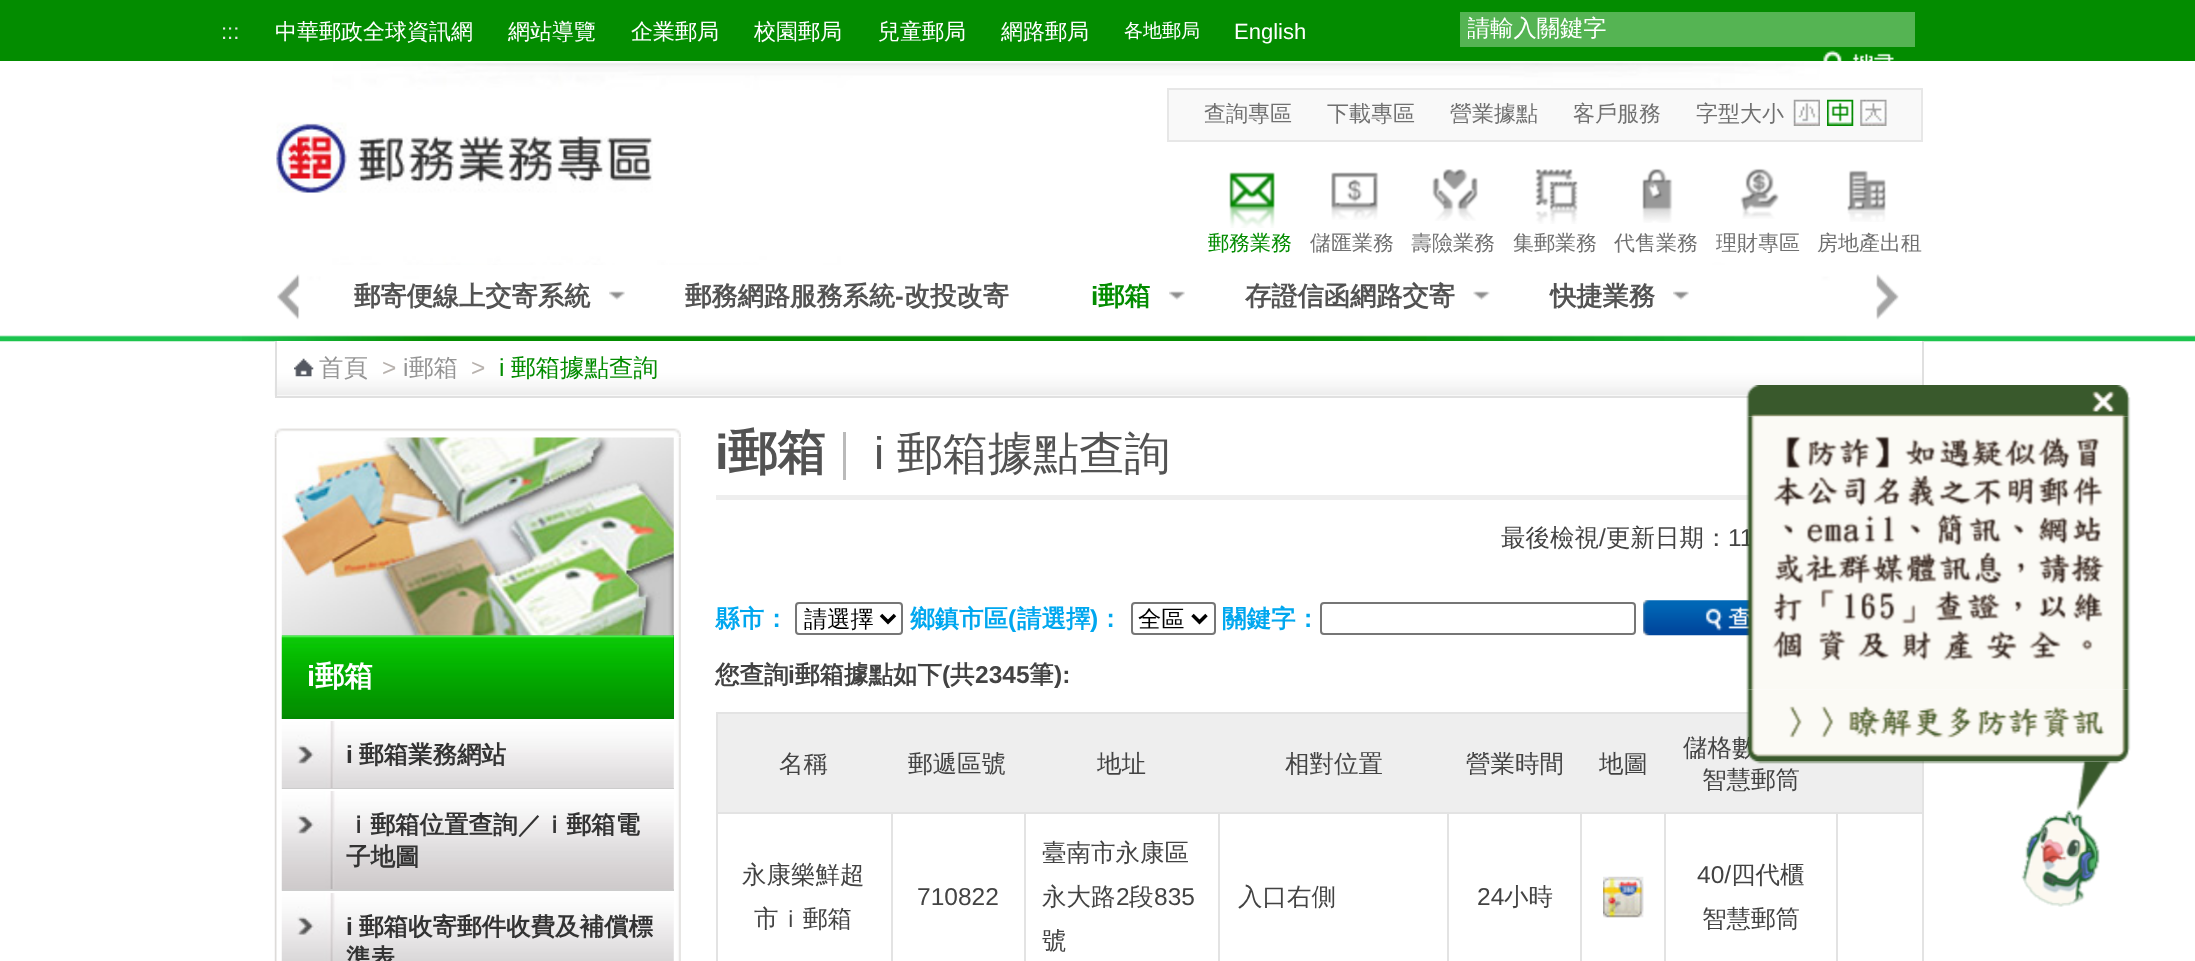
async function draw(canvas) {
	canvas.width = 2195;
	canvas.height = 961;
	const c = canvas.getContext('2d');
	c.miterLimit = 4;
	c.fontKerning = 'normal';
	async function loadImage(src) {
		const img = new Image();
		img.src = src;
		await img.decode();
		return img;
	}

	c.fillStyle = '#fff';
	c.fillRect(0, 0, 2195, 961);
	c.fillStyle = '#038c00';
	c.fillRect(0, 0, 2195, 61);
	c.font = '22px Liberation Sans';
	c.fillStyle = '#e5e5e5';
	c.fillText(':::', 221, 39);
	c.font = '500 22px WenQuanYi Zen Hei';
	c.fillStyle = '#fff';
	for (const [text, x, y] of [
		['中華郵政全球資訊網', 275, 39],
		['網站導覽', 508, 39],
		['企業郵局', 631, 39],
		['校園郵局', 754, 39],
		['兒童郵局', 878, 39],
		['網路郵局', 1001, 39],
	]) {
		c.fillText(text, x, y);
	}
	c.font = '500 19px WenQuanYi Zen Hei';
	c.fillText('各地郵局', 1124, 37);
	c.font = '22px Liberation Sans';
	c.fillText('English', 1234, 39);
	c.fillStyle = '#55b453';
	c.fillRect(1460, 12, 455, 35);
	c.save();
	c.beginPath();
	c.rect(1468, 14, 366, 32);
	c.clip();
	c.font = '500 23.25px WenQuanYi Zen Hei';
	c.fillStyle = '#fff';
	c.fillText('請輸入關鍵字', 1467, 36);
	c.restore();
	c.drawImage(await loadImage('img1.png'), 1823, 50, 71, 11);
	c.drawImage(await loadImage('img2.png'), 332, 62, 1488, 203);
	c.fillStyle = '#f9f9f9';
	c.beginPath();
	c.rect(1168, 89, 754, 52);
	c.fill();
	c.strokeStyle = '#e7e7e7';
	c.lineWidth = 2;
	c.stroke();
	c.font = '500 22px WenQuanYi Zen Hei';
	c.fillStyle = '#707070';
	for (const [text, x, y] of [
		['查詢專區', 1204, 121],
		['下載專區', 1327, 121],
		['營業據點', 1450, 121],
		['客戶服務', 1573, 121],
		['字型大小', 1696, 121],
	]) {
		c.fillText(text, x, y);
	}
	c.drawImage(await loadImage('img3.png'), 1793, 99, 27, 27);
	c.drawImage(await loadImage('img4.png'), 1827, 99, 27, 27);
	c.drawImage(await loadImage('img5.png'), 1860, 99, 27, 27);
	c.drawImage(await loadImage('img6.png'), 276, 122, 377, 71);
	c.drawImage(await loadImage('img7.png'), 1229, 172, 46, 56);
	c.font = '500 21px WenQuanYi Zen Hei';
	c.fillStyle = '#038c00';
	c.fillText('郵務業務', 1208, 250);
	c.drawImage(await loadImage('img8.png'), 1331, 172, 48, 48);
	c.fillStyle = '#707070';
	c.fillText('儲匯業務', 1310, 250);
	c.drawImage(await loadImage('img9.png'), 1432, 169, 46, 52);
	c.fillText('壽險業務', 1411, 250);
	c.drawImage(await loadImage('img10.png'), 1535, 169, 43, 55);
	c.fillText('集郵業務', 1513, 250);
	c.drawImage(await loadImage('img11.png'), 1642, 168, 31, 55);
	c.fillText('代售業務', 1614, 250);
	c.drawImage(await loadImage('img12.png'), 1740, 168, 39, 51);
	c.fillText('理財專區', 1716, 250);
	c.drawImage(await loadImage('img13.png'), 1847, 170, 39, 52);
	c.fillText('房地產出租', 1817, 250);
	c.drawImage(await loadImage('img14.png'), 0, 335, 2195, 7);
	c.drawImage(await loadImage('img15.png'), 242, 265, 1658, 76);
	c.drawImage(await loadImage('img16.png'), 277, 274, 23, 46);
	c.drawImage(await loadImage('img17.png'), 609, 291, 16, 9);
	c.font = 'bold 26.25px WenQuanYi Zen Hei';
	c.fillStyle = '#535353';
	c.fillText('郵寄便線上交寄系統', 354, 305);
	c.fillText('郵務網路服務系統', 685, 305);
	c.font = 'bold 26.25px Liberation Sans';
	c.fillText('-', 895, 305);
	c.font = 'bold 26.25px WenQuanYi Zen Hei';
	c.fillText('改投改寄', 904, 305);
	c.drawImage(await loadImage('img17.png'), 1169, 291, 16, 9);
	c.font = 'bold 26.25px Liberation Sans';
	c.fillStyle = '#038c00';
	c.fillText('i', 1091, 305);
	c.font = 'bold 26.25px WenQuanYi Zen Hei';
	c.fillText('郵箱', 1098, 305);
	c.drawImage(await loadImage('img18.png'), 1473, 291, 17, 9);
	c.fillStyle = '#535353';
	c.fillText('存證信函網路交寄', 1245, 305);
	c.drawImage(await loadImage('img17.png'), 1673, 291, 16, 9);
	c.fillText('快捷業務', 1550, 305);
	c.drawImage(await loadImage('img19.png'), 1876, 274, 23, 46);
	c.drawImage(await loadImage('img20.png'), 274, 341, 1648, 55);
	for (const [x, y, w, h, color] of [
		[1922, 341, 2, 44, '#e0e0e0'],
		[275, 396, 1475, 2, '#e0e0e0'],
		[275, 341, 2, 56, '#e0e0e0'],
	]) {
		c.fillStyle = color;
		c.fillRect(x, y, w, h);
	}
	c.drawImage(await loadImage('img21.png'), 294, 358, 20, 19);
	c.font = '500 24.5px WenQuanYi Zen Hei';
	c.fillStyle = '#959595';
	c.fillText('首頁', 319, 376);
	c.font = '24.5px Liberation Sans';
	c.fillStyle = '#b8b2ae';
	c.fillText('>', 382, 376);
	c.fillStyle = '#959595';
	c.fillText('i', 403, 376);
	c.font = '500 24.5px WenQuanYi Zen Hei';
	c.fillText('郵箱', 409, 376);
	c.font = '24.5px Liberation Sans';
	c.fillStyle = '#b8b2ae';
	c.fillText('>', 471, 376);
	c.fillStyle = '#038c00';
	c.fillText('i', 499, 376);
	c.font = '500 24.5px WenQuanYi Zen Hei';
	c.fillText('郵箱據點查詢', 511, 376);
	c.drawImage(await loadImage('img22.png'), 274, 428, 407, 10);
	c.drawImage(await loadImage('img23.png'), 274, 438, 407, 523);
	c.fillStyle = '#01731c';
	c.fillRect(282, 635, 392, 84);
	c.drawImage(await loadImage('img25.png'), 281, 635, 393, 84);
	c.drawImage(await loadImage('img24.png'), 281, 437, 393, 199);
	c.font = 'bold 29px Liberation Sans';
	c.fillStyle = '#fff';
	c.fillText('i', 307, 686);
	c.font = 'bold 29px WenQuanYi Zen Hei';
	c.fillText('郵箱', 315, 686);
	c.drawImage(await loadImage('img26.png'), 281, 721, 393, 68);
	c.fillStyle = '#ccc';
	c.fillRect(282, 788, 392, 1);
	c.font = 'bold 24.5px Liberation Sans';
	c.fillStyle = '#333';
	c.fillText('i', 346, 763);
	c.font = 'bold 24.5px WenQuanYi Zen Hei';
	c.fillText('郵箱業務網站', 359, 763);
	c.drawImage(await loadImage('img27.png'), 281, 791, 393, 100);
	c.fillStyle = '#ccc';
	c.fillRect(282, 889, 392, 2);
	c.fillStyle = '#333';
	c.fillText('ｉ郵箱位置查詢／ｉ郵箱電', 346, 833);
	c.fillText('子地圖', 346, 865);
	c.drawImage(await loadImage('img28.png'), 281, 892, 393, 69);
	c.fillStyle = '#fff';
	c.fillRect(330, 892, 5, 1);
	c.font = 'bold 24.5px Liberation Sans';
	c.fillStyle = '#333';
	c.fillText('i', 346, 935);
	c.font = 'bold 24.5px WenQuanYi Zen Hei';
	c.fillText('郵箱收寄郵件收費及補償標', 359, 935);
	c.fillText('準表', 346, 966);
	c.fillStyle = '#eee';
	c.fillRect(716, 495, 1034, 5);
	c.font = 'bold 49px Liberation Sans';
	c.fillStyle = '#535353';
	c.fillText('i', 715, 469);
	c.font = 'bold 49px WenQuanYi Zen Hei';
	c.fillText('郵箱', 728, 469);
	c.font = '45.5px Liberation Sans';
	c.fillText('i', 874, 469);
	c.fillStyle = '#bababa';
	c.fillRect(843, 432, 3, 48);
	c.font = '500 45.5px WenQuanYi Zen Hei';
	c.fillStyle = '#535353';
	c.fillText('郵箱據點查詢', 897, 469);
	c.font = '500 24.5px WenQuanYi Zen Hei';
	c.fillStyle = '#434343';
	c.fillText('最後檢視', 1501, 546);
	c.font = '24.5px Liberation Sans';
	c.fillText('/', 1599, 546);
	c.font = '500 24.5px WenQuanYi Zen Hei';
	c.fillText('更新日期：', 1606, 546);
	c.font = '24.5px Liberation Sans';
	c.fillText('11', 1728, 546);
	c.font = 'bold 24.5px WenQuanYi Zen Hei';
	c.fillStyle = '#00a7ef';
	c.fillText('縣市：', 715, 627);
	c.beginPath();
	c.roundRect(796, 603, 106, 31, 3);
	c.strokeStyle = '#767676';
	c.stroke();
	c.beginPath();
	c.moveTo(881, 615);
	c.lineTo(888, 622);
	c.lineTo(895, 615);
	c.strokeStyle = '#000';
	c.lineWidth = 3.5;
	c.stroke();
	c.font = '500 23.25px WenQuanYi Zen Hei';
	c.fillStyle = '#000';
	c.fillText('請選擇', 804, 627);
	c.font = 'bold 24.5px WenQuanYi Zen Hei';
	c.fillStyle = '#00a7ef';
	c.fillText('鄉鎮市區', 910, 627);
	c.font = 'bold 24.5px Liberation Sans';
	c.fillText('(', 1008, 627);
	c.font = 'bold 24.5px WenQuanYi Zen Hei';
	c.fillText('請選擇', 1017, 627);
	c.font = 'bold 24.5px Liberation Sans';
	c.fillText(')', 1090, 627);
	c.font = 'bold 24.5px WenQuanYi Zen Hei';
	c.fillText('：', 1098, 627);
	c.beginPath();
	c.roundRect(1132, 603, 83, 31, 3);
	c.strokeStyle = '#767676';
	c.lineWidth = 2;
	c.stroke();
	c.beginPath();
	c.moveTo(1192.5, 615);
	c.lineTo(1199.5, 622);
	c.lineTo(1206.5, 615);
	c.strokeStyle = '#000';
	c.lineWidth = 3.5;
	c.stroke();
	c.font = '500 23.25px WenQuanYi Zen Hei';
	c.fillStyle = '#000';
	c.fillText('全區', 1138, 627);
	c.font = 'bold 24.5px WenQuanYi Zen Hei';
	c.fillStyle = '#00a7ef';
	c.fillText('關鍵字：', 1222, 627);
	c.beginPath();
	c.roundRect(1321, 603, 314, 31, 3);
	c.strokeStyle = '#767676';
	c.lineWidth = 2;
	c.stroke();
	c.drawImage(await loadImage('img29.png'), 1643, 600, 107, 36);
	c.fillStyle = '#434343';
	c.fillText('您查詢', 715, 683);
	c.font = 'bold 24.5px Liberation Sans';
	c.fillText('i', 788, 683);
	c.font = 'bold 24.5px WenQuanYi Zen Hei';
	c.fillText('郵箱據點如下', 795, 683);
	c.font = 'bold 24.5px Liberation Sans';
	c.fillText('(', 942, 683);
	c.font = 'bold 24.5px WenQuanYi Zen Hei';
	c.fillText('共', 950, 683);
	c.font = 'bold 24.5px Liberation Sans';
	c.fillText('2345', 975, 683);
	c.font = 'bold 24.5px WenQuanYi Zen Hei';
	c.fillText('筆', 1029, 683);
	c.font = 'bold 24.5px Liberation Sans';
	c.fillText('):', 1054, 683);
	for (const [x, y, w, h, color] of [
		[716, 712, 1034, 2, '#e3e3e3'],
		[1922, 761, 2, 200, '#e3e3e3'],
		[716, 712, 2, 249, '#e3e3e3'],
		[718, 714, 1118, 98, '#eee'],
	]) {
		c.fillStyle = color;
		c.fillRect(x, y, w, h);
	}
	c.font = '500 24.5px WenQuanYi Zen Hei';
	c.fillStyle = '#434343';
	for (const [text, x, y] of [
		['名稱', 779, 772],
		['郵遞區號', 908, 772],
		['地址', 1097, 772],
		['相對位置', 1285, 772],
		['營業時間', 1466, 772],
		['地圖', 1599, 772],
		['儲格數', 1683, 756],
		['智慧郵筒', 1702, 788],
	]) {
		c.fillText(text, x, y);
	}
	for (const [x, y, w, h, color] of [
		[1836, 761, 86, 51, '#eee'],
		[1836, 812, 87, 2, '#e3e3e3'],
		[1836, 812, 2, 149, '#e3e3e3'],
		[1664, 812, 174, 2, '#e3e3e3'],
		[1664, 812, 2, 149, '#e3e3e3'],
		[1580, 812, 86, 2, '#e3e3e3'],
		[1580, 812, 2, 149, '#e3e3e3'],
		[1447, 812, 135, 2, '#e3e3e3'],
		[1447, 812, 2, 149, '#e3e3e3'],
		[1218, 812, 231, 2, '#e3e3e3'],
		[1218, 812, 2, 149, '#e3e3e3'],
		[1024, 812, 196, 2, '#e3e3e3'],
		[1024, 812, 2, 149, '#e3e3e3'],
		[891, 812, 135, 2, '#e3e3e3'],
		[891, 812, 2, 149, '#e3e3e3'],
		[716, 812, 177, 2, '#e3e3e3'],
	]) {
		c.fillStyle = color;
		c.fillRect(x, y, w, h);
	}
	c.fillStyle = '#434343';
	c.fillText('永康樂鮮超', 742, 883);
	c.fillText('市ｉ郵箱', 754, 927);
	c.font = '24.5px Liberation Sans';
	c.fillText('710822', 917, 905);
	c.font = '500 24.5px WenQuanYi Zen Hei';
	c.fillText('臺南市永康區', 1042, 861);
	c.fillText('永大路', 1042, 905);
	c.font = '24.5px Liberation Sans';
	c.fillText('2', 1116, 905);
	c.font = '500 24.5px WenQuanYi Zen Hei';
	c.fillText('段', 1129, 905);
	c.font = '24.5px Liberation Sans';
	c.fillText('835', 1154, 905);
	c.font = '500 24.5px WenQuanYi Zen Hei';
	c.fillText('號', 1042, 949);
	c.fillText('入口右側', 1238, 905);
	c.font = '24.5px Liberation Sans';
	c.fillText('24', 1477, 905);
	c.font = '500 24.5px WenQuanYi Zen Hei';
	c.fillText('小時', 1504, 905);
	c.drawImage(await loadImage('img30.png'), 1603, 876, 41, 42);
	c.font = '24.5px Liberation Sans';
	c.fillText('40/', 1697, 883);
	c.font = '500 24.5px WenQuanYi Zen Hei';
	c.fillText('四代櫃', 1731, 883);
	c.fillText('智慧郵筒', 1702, 927);
	c.drawImage(await loadImage('img31.png'), 1746, 385, 385, 32);
	c.drawImage(await loadImage('img32.png'), 1746, 416, 385, 274);
	c.drawImage(await loadImage('img33.png'), 1746, 689, 385, 73);
	c.drawImage(await loadImage('img35.png'), 2021, 810, 79, 97);
	c.drawImage(await loadImage('img34.png'), 1755, 761, 365, 50);
}

draw(document.querySelector('canvas'));
